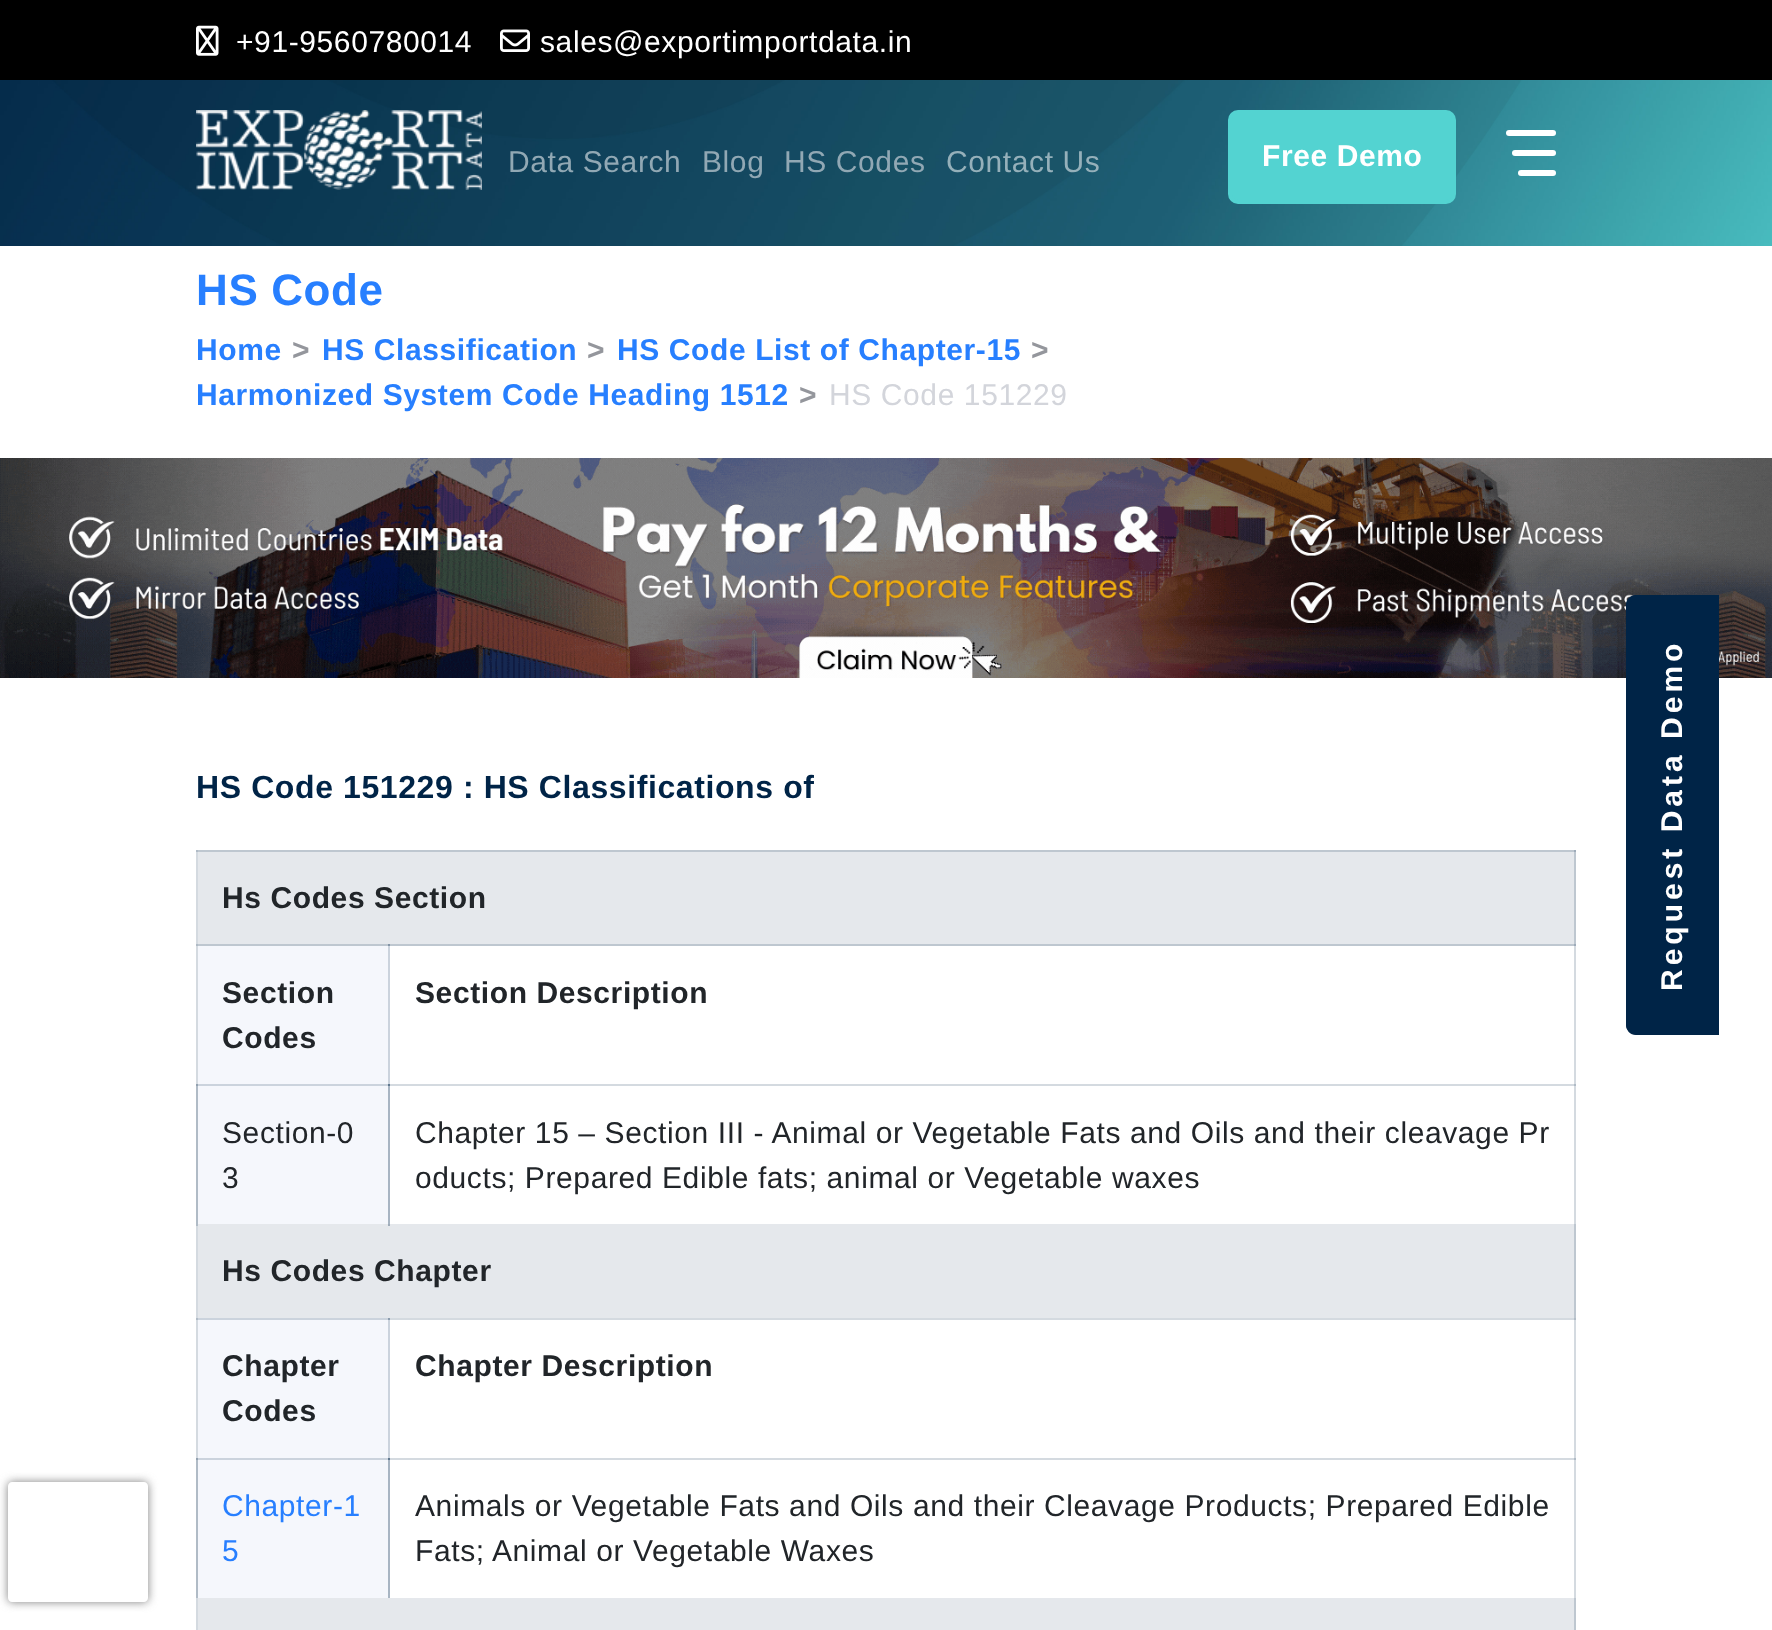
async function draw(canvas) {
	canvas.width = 1772;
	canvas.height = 1630;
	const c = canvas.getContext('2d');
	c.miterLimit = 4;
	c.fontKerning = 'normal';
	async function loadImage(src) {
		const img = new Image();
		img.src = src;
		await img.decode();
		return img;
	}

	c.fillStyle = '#fff';
	c.fillRect(0, 0, 1772, 1630);
	for (const [x, y, w, h, color] of [
		[388, 1084, 1188, 2, '#d4dae0'],
		[388, 1318, 1188, 2, '#d4dae0'],
		[388, 1458, 1188, 2, '#d4dae0'],
		[196, 850, 2, 780, '#d4dae0'],
		[196, 944, 2, 2, '#b0bbc6'],
		[196, 1084, 2, 142, '#b0bbc6'],
		[196, 1084, 2, 2, '#92a1b0'],
		[196, 1318, 2, 2, '#b0bbc6'],
		[196, 1458, 2, 140, '#b0bbc6'],
		[196, 1458, 2, 2, '#92a1b0'],
		[1574, 946, 2, 652, '#d4dae0'],
		[1574, 1084, 2, 2, '#b0bbc6'],
		[1574, 1318, 2, 2, '#b0bbc6'],
		[1574, 1458, 2, 2, '#b0bbc6'],
		[196, 850, 2, 2, '#b0bbc6'],
		[0, 0, 1772, 80, '#000'],
	]) {
		c.fillStyle = color;
		c.fillRect(x, y, w, h);
	}
	c.drawImage(await loadImage('img1.png'), 196, 25, 23, 31);
	c.letterSpacing = '0.6px';
	c.font = '30px Liberation Sans';
	c.fillStyle = '#fff';
	c.fillText('+91-9560780014', 236, 52);
	c.drawImage(await loadImage('img2.png'), 500, 29, 30, 23);
	c.fillText('sales@exportimportdata.in', 540, 52);
	c.drawImage(await loadImage('img3.png'), 0, 80, 1772, 166);
	c.drawImage(await loadImage('img4.png'), 196, 110, 286, 80);
	c.fillStyle = '#91a8b4';
	for (const [text, x, y] of [
		['Data Search', 508, 172],
		['Blog', 702, 172],
		['HS Codes', 784, 172],
	]) {
		c.fillText(text, x, y);
	}
	c.fillStyle = '#95b0ba';
	c.fillText('Contact Us', 946, 172);
	c.fillStyle = '#53d3d1';
	c.beginPath();
	c.roundRect(1230, 112, 224, 90, 8);
	c.fill();
	c.strokeStyle = '#53d3d1';
	c.lineWidth = 4;
	c.stroke();
	c.font = 'bold 30px Liberation Sans';
	c.fillStyle = '#fff';
	c.fillText('Free Demo', 1262, 166);
	c.beginPath();
	c.roundRect(1506, 130, 50, 6, 3);
	c.fill();
	c.beginPath();
	c.roundRect(1512, 150, 44, 6, 3);
	c.fill();
	c.beginPath();
	c.roundRect(1518, 170, 38, 6, 3);
	c.fill();
	c.font = 'bold 44px Liberation Sans';
	c.fillStyle = '#277fff';
	c.fillText('HS Code', 196, 305);
	c.font = 'bold 30px Liberation Sans';
	c.fillText('Home', 196, 360);
	c.fillStyle = '#94969c';
	c.fillText('>', 292, 360);
	c.fillStyle = '#277fff';
	c.fillText('HS Classification', 322, 360);
	c.fillStyle = '#94969c';
	c.fillText('>', 587, 360);
	c.fillStyle = '#277fff';
	c.fillText('HS Code List of Chapter-15', 617, 360);
	c.fillStyle = '#94969c';
	c.fillText('>', 1031, 360);
	c.fillStyle = '#277fff';
	c.fillText('Harmonized System Code Heading 1512', 196, 405);
	c.fillStyle = '#94969c';
	c.fillText('>', 799, 405);
	c.font = '30px Liberation Sans';
	c.fillStyle = '#d3d5db';
	c.fillText('HS Code 151229', 829, 405);
	c.drawImage(await loadImage('img5.png'), 0, 458, 1772, 220);
	c.save();
	c.beginPath();
	c.moveTo(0, 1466);
	c.lineTo(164, 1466);
	c.lineTo(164, 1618);
	c.lineTo(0, 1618);
	c.closePath();
	c.moveTo(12, 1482);
	c.lineTo(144, 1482);
	c.bezierCurveTo(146, 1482, 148, 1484, 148, 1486);
	c.lineTo(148, 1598);
	c.bezierCurveTo(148, 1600, 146, 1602, 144, 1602);
	c.lineTo(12, 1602);
	c.bezierCurveTo(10, 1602, 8, 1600, 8, 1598);
	c.lineTo(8, 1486);
	c.bezierCurveTo(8, 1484, 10, 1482, 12, 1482);
	c.closePath();
	c.clip('evenodd');
	c.fillStyle = '#808080';
	c.filter = 'blur(5px)';
	c.beginPath();
	c.roundRect(8, 1482, 140, 120, 4);
	c.fill();
	c.filter = 'none';
	c.restore();
	c.font = 'bold 32px Liberation Sans';
	c.fillStyle = '#002447';
	c.fillText('HS Code 151229 : HS Classifications of', 196, 798);
	for (const [x, y, w, h, color] of [
		[198, 852, 1376, 92, '#e5e8ec'],
		[198, 944, 1378, 2, '#bec7d0'],
		[388, 944, 2, 2, '#8394a6'],
		[1574, 850, 2, 96, '#bec7d0'],
		[1574, 944, 2, 2, '#9eabb9'],
		[198, 850, 1378, 2, '#bec7d0'],
		[1574, 850, 2, 2, '#9eabb9'],
	]) {
		c.fillStyle = color;
		c.fillRect(x, y, w, h);
	}
	c.font = 'bold 30px Liberation Sans';
	c.fillStyle = '#212529';
	c.fillText('Hs Codes Section', 222, 908);
	for (const [x, y, w, h, color] of [
		[198, 946, 190, 138, '#f5f7fc'],
		[388, 946, 2, 140, '#cbd3dd'],
		[198, 1084, 192, 2, '#cbd3dd'],
		[388, 1084, 2, 2, '#5f778e'],
	]) {
		c.fillStyle = color;
		c.fillRect(x, y, w, h);
	}
	c.fillStyle = '#212529';
	for (const [text, x, y] of [
		['Section', 222, 1003],
		['Codes', 222, 1048],
		['Section Description', 415, 1003],
	]) {
		c.fillText(text, x, y);
	}
	c.fillStyle = '#f5f7fc';
	c.fillRect(198, 1086, 190, 138);
	c.fillStyle = '#a8b5c3';
	c.fillRect(388, 1086, 2, 138);
	c.font = '30px Liberation Sans';
	c.fillStyle = '#212529';
	for (const [text, x, y] of [
		['Section-0', 222, 1143],
		['3', 222, 1188],
		['Chapter 15 – Section III - Animal or Vegetable Fats and Oils and their cleavage Pr', 415, 1143],
		['oducts; Prepared Edible fats; animal or Vegetable waxes', 415, 1188],
	]) {
		c.fillText(text, x, y);
	}
	for (const [x, y, w, h, color] of [
		[198, 1224, 1376, 94, '#e5e8ec'],
		[388, 1224, 2, 2, '#9eabb9'],
		[1574, 1224, 2, 94, '#bec7d0'],
	]) {
		c.fillStyle = color;
		c.fillRect(x, y, w, h);
	}
	c.font = 'bold 30px Liberation Sans';
	c.fillStyle = '#212529';
	c.fillText('Hs Codes Chapter', 222, 1281);
	for (const [x, y, w, h, color] of [
		[198, 1320, 190, 138, '#f5f7fc'],
		[388, 1318, 2, 140, '#cbd3dd'],
		[198, 1318, 192, 2, '#cbd3dd'],
		[388, 1318, 2, 2, '#8b9cae'],
	]) {
		c.fillStyle = color;
		c.fillRect(x, y, w, h);
	}
	c.fillStyle = '#212529';
	for (const [text, x, y] of [
		['Chapter', 222, 1376],
		['Codes', 222, 1421],
		['Chapter Description', 415, 1376],
	]) {
		c.fillText(text, x, y);
	}
	for (const [x, y, w, h, color] of [
		[198, 1460, 190, 138, '#f5f7fc'],
		[198, 1458, 192, 2, '#cbd3dd'],
		[388, 1458, 2, 140, '#a8b5c3'],
		[388, 1458, 2, 2, '#5f778e'],
	]) {
		c.fillStyle = color;
		c.fillRect(x, y, w, h);
	}
	c.font = '30px Liberation Sans';
	c.fillStyle = '#277fff';
	c.fillText('Chapter-1', 222, 1516);
	c.fillText('5', 222, 1561);
	c.fillStyle = '#212529';
	c.fillText('Animals or Vegetable Fats and Oils and their Cleavage Products; Prepared Edible', 415, 1516);
	c.fillText('Fats; Animal or Vegetable Waxes', 415, 1561);
	c.fillStyle = '#e5e8ec';
	c.fillRect(198, 1598, 1376, 32);
	c.fillStyle = '#bec7d0';
	c.fillRect(1574, 1598, 2, 32);
	c.fillStyle = '#002447';
	c.beginPath();
	c.moveTo(1626, 1025);
	c.lineTo(1626, 605);
	c.bezierCurveTo(1626, 600, 1630, 595, 1636, 595);
	c.lineTo(1719, 595);
	c.lineTo(1719, 1035);
	c.lineTo(1636, 1035);
	c.bezierCurveTo(1630, 1035, 1626, 1030, 1626, 1025);
	c.closePath();
	c.fill();
	c.beginPath();
	c.moveTo(1628, 1024.5);
	c.lineTo(1628, 605.5);
	c.bezierCurveTo(1628, 601, 1631.5, 597.5, 1636, 597.5);
	c.lineTo(1717, 597.5);
	c.lineTo(1717, 1032.5);
	c.lineTo(1636, 1032.5);
	c.bezierCurveTo(1631.5, 1032.5, 1628, 1029, 1628, 1024.5);
	c.closePath();
	c.strokeStyle = '#002447';
	c.stroke();
	c.letterSpacing = '4px';
	c.font = 'bold 30px Liberation Sans';
	c.fillStyle = '#fff';
	c.save();
	c.translate(1682, 991);
	c.rotate(-90 * Math.PI / 180);
	c.fillText('Request Data Demo', 0, 0);
	c.restore();
}

draw(document.querySelector('canvas'));
